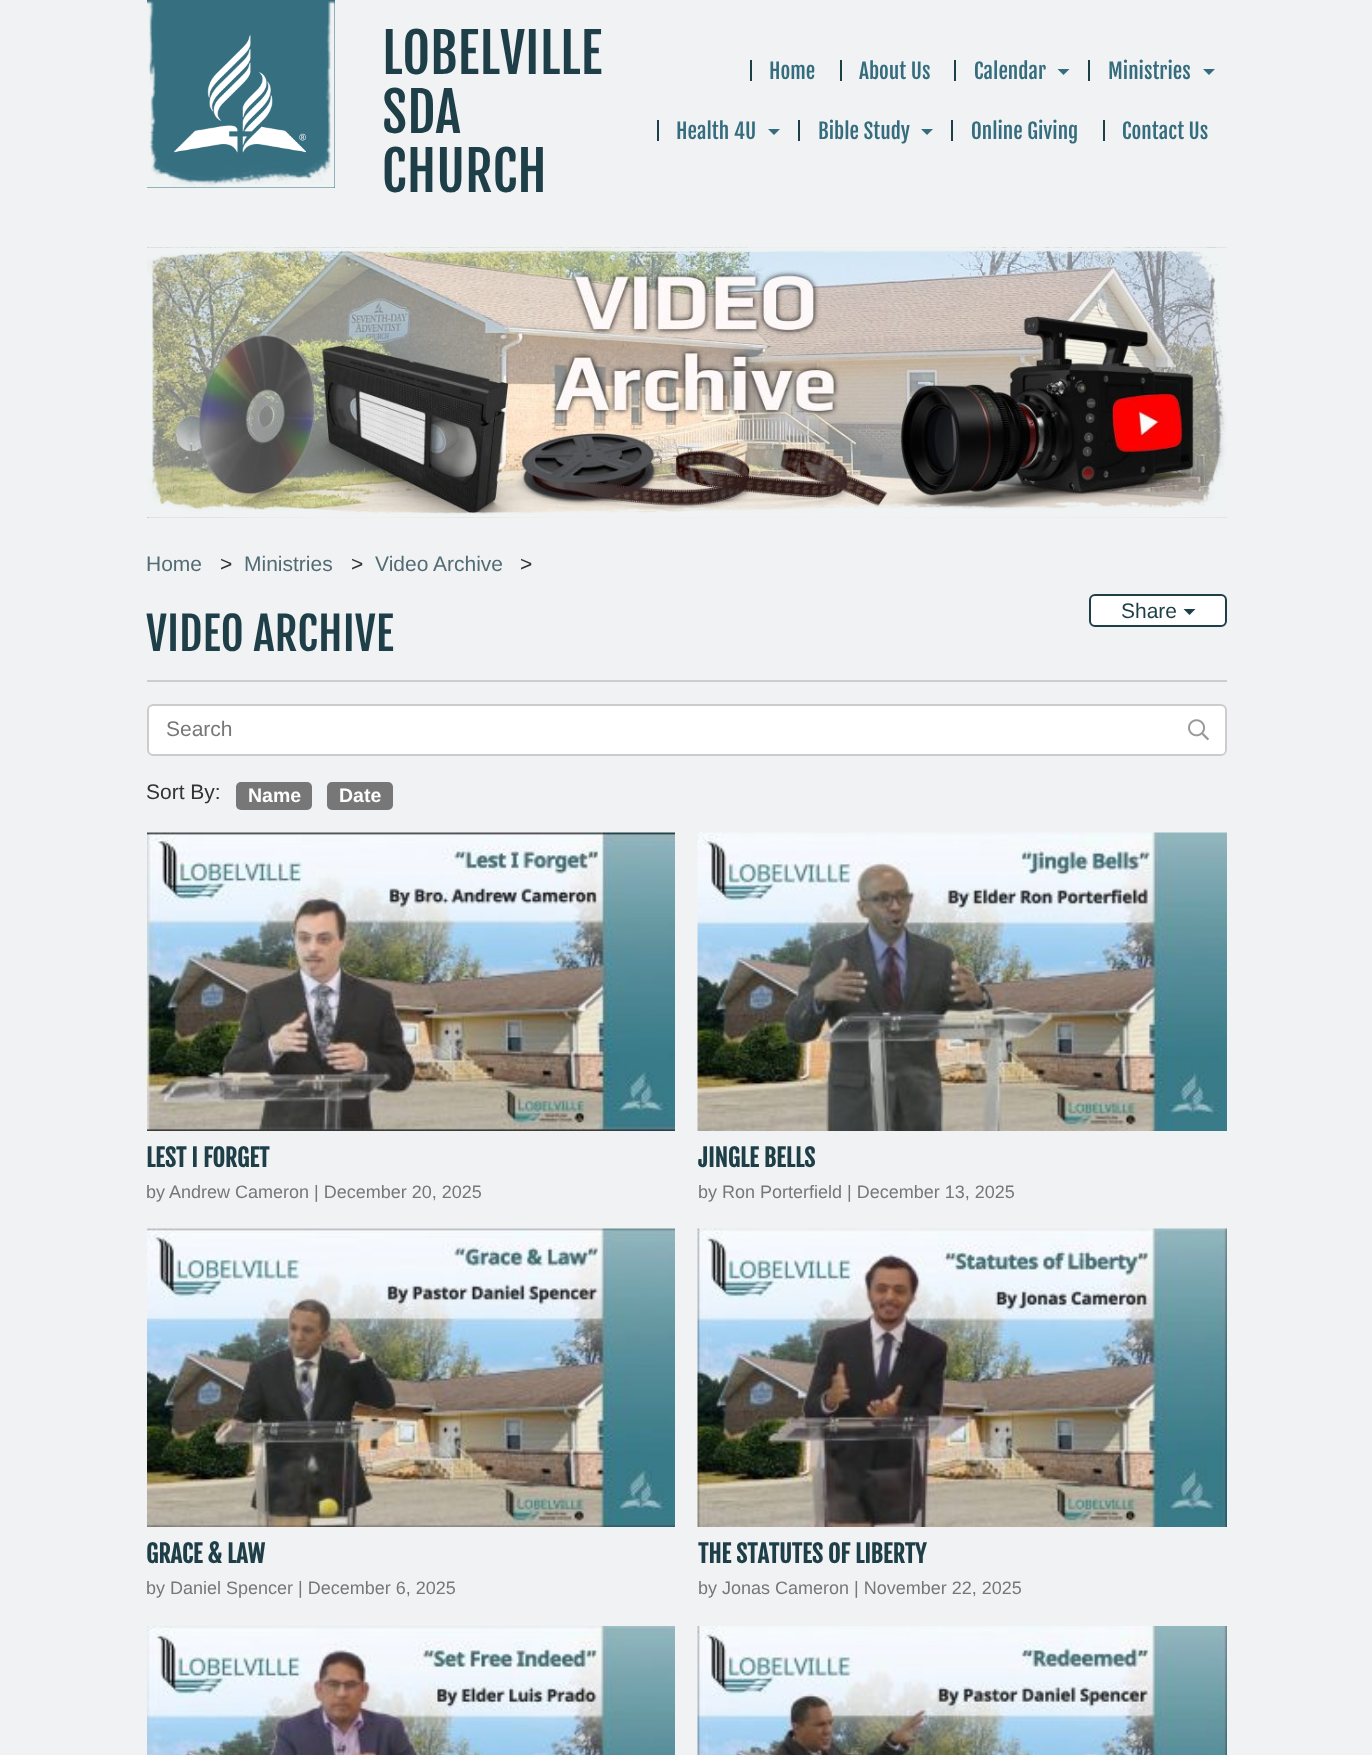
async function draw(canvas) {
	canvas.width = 1372;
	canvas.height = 1755;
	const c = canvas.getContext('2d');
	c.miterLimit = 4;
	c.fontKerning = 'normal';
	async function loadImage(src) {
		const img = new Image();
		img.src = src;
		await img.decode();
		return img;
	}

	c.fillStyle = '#f1f2f4';
	c.fillRect(0, 0, 1372, 1755);
	c.fillStyle = '#366f80';
	c.fillRect(147, 0, 188, 188);
	c.drawImage(await loadImage('img1.png'), 147, 1, 188, 187);
	c.drawImage(await loadImage('img2.png'), 174, 35, 132, 118);
	c.font = '54px Fjalla One';
	c.fillStyle = '#1e3e48';
	for (const [text, x, y] of [
		['LOBELVILLE', 382, 74],
		['SDA', 382, 133],
		['CHURCH', 382, 192],
	]) {
		c.fillText(text, x, y);
	}
	c.fillRect(750, 60, 2, 21);
	c.font = '21px Fjalla One';
	c.fillStyle = '#356d7e';
	c.fillText('Home', 769, 79);
	c.fillStyle = '#1e3e48';
	c.fillRect(840, 60, 2, 21);
	c.fillStyle = '#356d7e';
	c.fillText('About Us', 859, 79);
	c.fillStyle = '#1e3e48';
	c.fillRect(954, 60, 2, 21);
	c.fillStyle = '#356d7e';
	c.fillText('Calendar', 974, 79);
	c.beginPath();
	c.moveTo(1057.5, 69);
	c.lineTo(1069.5, 69);
	c.lineTo(1063.5, 75);
	c.closePath();
	c.fill();
	c.fillStyle = '#1e3e48';
	c.fillRect(1088, 60, 2, 21);
	c.fillStyle = '#356d7e';
	c.fillText('Ministries', 1108, 79);
	c.beginPath();
	c.moveTo(1203, 69);
	c.lineTo(1215, 69);
	c.lineTo(1209, 75);
	c.closePath();
	c.fill();
	c.fillStyle = '#1e3e48';
	c.fillRect(657, 120, 2, 21);
	c.fillStyle = '#356d7e';
	c.fillText('Health 4U', 676, 139);
	c.beginPath();
	c.moveTo(768, 129);
	c.lineTo(780, 129);
	c.lineTo(774, 135);
	c.closePath();
	c.fill();
	c.fillStyle = '#1e3e48';
	c.fillRect(798, 120, 2, 21);
	c.fillStyle = '#356d7e';
	c.fillText('Bible Study', 818, 139);
	c.beginPath();
	c.moveTo(921, 129);
	c.lineTo(933, 129);
	c.lineTo(927, 135);
	c.closePath();
	c.fill();
	c.fillStyle = '#1e3e48';
	c.fillRect(951, 120, 2, 21);
	c.fillStyle = '#356d7e';
	c.fillText('Online Giving', 971, 139);
	c.fillStyle = '#1e3e48';
	c.fillRect(1103, 120, 2, 21);
	c.fillStyle = '#356d7e';
	c.fillText('Contact Us', 1122, 139);
	c.drawImage(await loadImage('img3.png'), 147, 247, 1080, 271);
	c.drawImage(await loadImage('img4.png'), 147, 247, 1080, 271);
	c.font = '21px Liberation Sans';
	c.fillStyle = '#536b73';
	c.fillText('Home', 146, 571);
	c.fillStyle = '#333';
	c.fillText('>', 220, 571);
	c.fillStyle = '#536b73';
	c.fillText('Ministries', 244, 571);
	c.fillStyle = '#333';
	c.fillText('>', 351, 571);
	c.fillStyle = '#536b73';
	c.fillText('Video Archive', 375, 571);
	c.fillStyle = '#333';
	c.fillText('>', 520, 571);
	c.fillStyle = '#fff';
	c.beginPath();
	c.roundRect(1090, 595, 136, 31, 5);
	c.fill();
	c.strokeStyle = '#1e3e48';
	c.lineWidth = 2;
	c.stroke();
	c.fillStyle = '#1e3e48';
	c.fillText('Share', 1121, 618);
	c.beginPath();
	c.moveTo(1183.5, 609);
	c.lineTo(1195.5, 609);
	c.lineTo(1189.5, 615);
	c.closePath();
	c.fill();
	c.font = '45px Fjalla One';
	c.fillText('VIDEO ARCHIVE', 146, 651);
	c.fillStyle = '#cdcdcd';
	c.fillRect(147, 680, 1080, 2);
	c.fillStyle = '#fff';
	c.beginPath();
	c.roundRect(147, 704, 1080, 52, 6);
	c.fill();
	c.fillStyle = '#ebebeb';
	c.beginPath();
	c.moveTo(153, 706);
	c.lineTo(1221, 706);
	c.bezierCurveTo(1223, 706, 1226, 709, 1226, 711);
	c.lineTo(1226, 710);
	c.bezierCurveTo(1226, 707, 1224, 705, 1221, 705);
	c.lineTo(154, 705);
	c.bezierCurveTo(152, 705, 150, 706, 149, 708);
	c.bezierCurveTo(150, 707, 152, 706, 153, 706);
	c.closePath();
	c.fill();
	c.beginPath();
	c.roundRect(148, 705, 1078, 50, 5);
	c.strokeStyle = '#ccc';
	c.stroke();
	c.font = '21px Liberation Sans';
	c.fillStyle = '#777';
	c.fillText('Search', 166, 736);
	c.drawImage(await loadImage('img5.png'), 1188, 719, 21, 22);
	c.fillStyle = '#333';
	c.fillText('Sort By:', 146, 799);
	c.fillStyle = '#777';
	c.beginPath();
	c.roundRect(236, 782, 76, 28, 5);
	c.fill();
	c.font = 'bold 19.5px Liberation Sans';
	c.fillStyle = '#fff';
	c.fillText('Name', 248, 802);
	c.fillStyle = '#777';
	c.beginPath();
	c.roundRect(327, 782, 66, 28, 5);
	c.fill();
	c.fillStyle = '#fff';
	c.fillText('Date', 339, 802);
	c.drawImage(await loadImage('img6.png'), 147, 832, 528, 299);
	c.font = 'bold 24px Fjalla One';
	c.fillStyle = '#1e3e48';
	c.fillText('LEST I FORGET', 146, 1167);
	c.font = '18px Liberation Sans';
	c.fillStyle = '#777';
	c.fillText('by Andrew Cameron | December 20, 2025', 146, 1198);
	c.drawImage(await loadImage('img7.png'), 697, 832, 530, 299);
	c.font = 'bold 24px Fjalla One';
	c.fillStyle = '#1e3e48';
	c.fillText('JINGLE BELLS', 698, 1167);
	c.font = '18px Liberation Sans';
	c.fillStyle = '#777';
	c.fillText('by Ron Porterfield | December 13, 2025', 698, 1198);
	c.drawImage(await loadImage('img8.png'), 147, 1228, 528, 299);
	c.font = 'bold 24px Fjalla One';
	c.fillStyle = '#1e3e48';
	c.fillText('GRACE & LAW', 146, 1563);
	c.font = '18px Liberation Sans';
	c.fillStyle = '#777';
	c.fillText('by Daniel Spencer | December 6, 2025', 146, 1594);
	c.drawImage(await loadImage('img9.png'), 697, 1228, 530, 299);
	c.font = 'bold 24px Fjalla One';
	c.fillStyle = '#1e3e48';
	c.fillText('THE STATUTES OF LIBERTY', 698, 1563);
	c.font = '18px Liberation Sans';
	c.fillStyle = '#777';
	c.fillText('by Jonas Cameron | November 22, 2025', 698, 1594);
	c.drawImage(await loadImage('img10.png'), 147, 1626, 528, 129);
	c.drawImage(await loadImage('img11.png'), 697, 1626, 530, 129);
}

draw(document.querySelector('canvas'));
